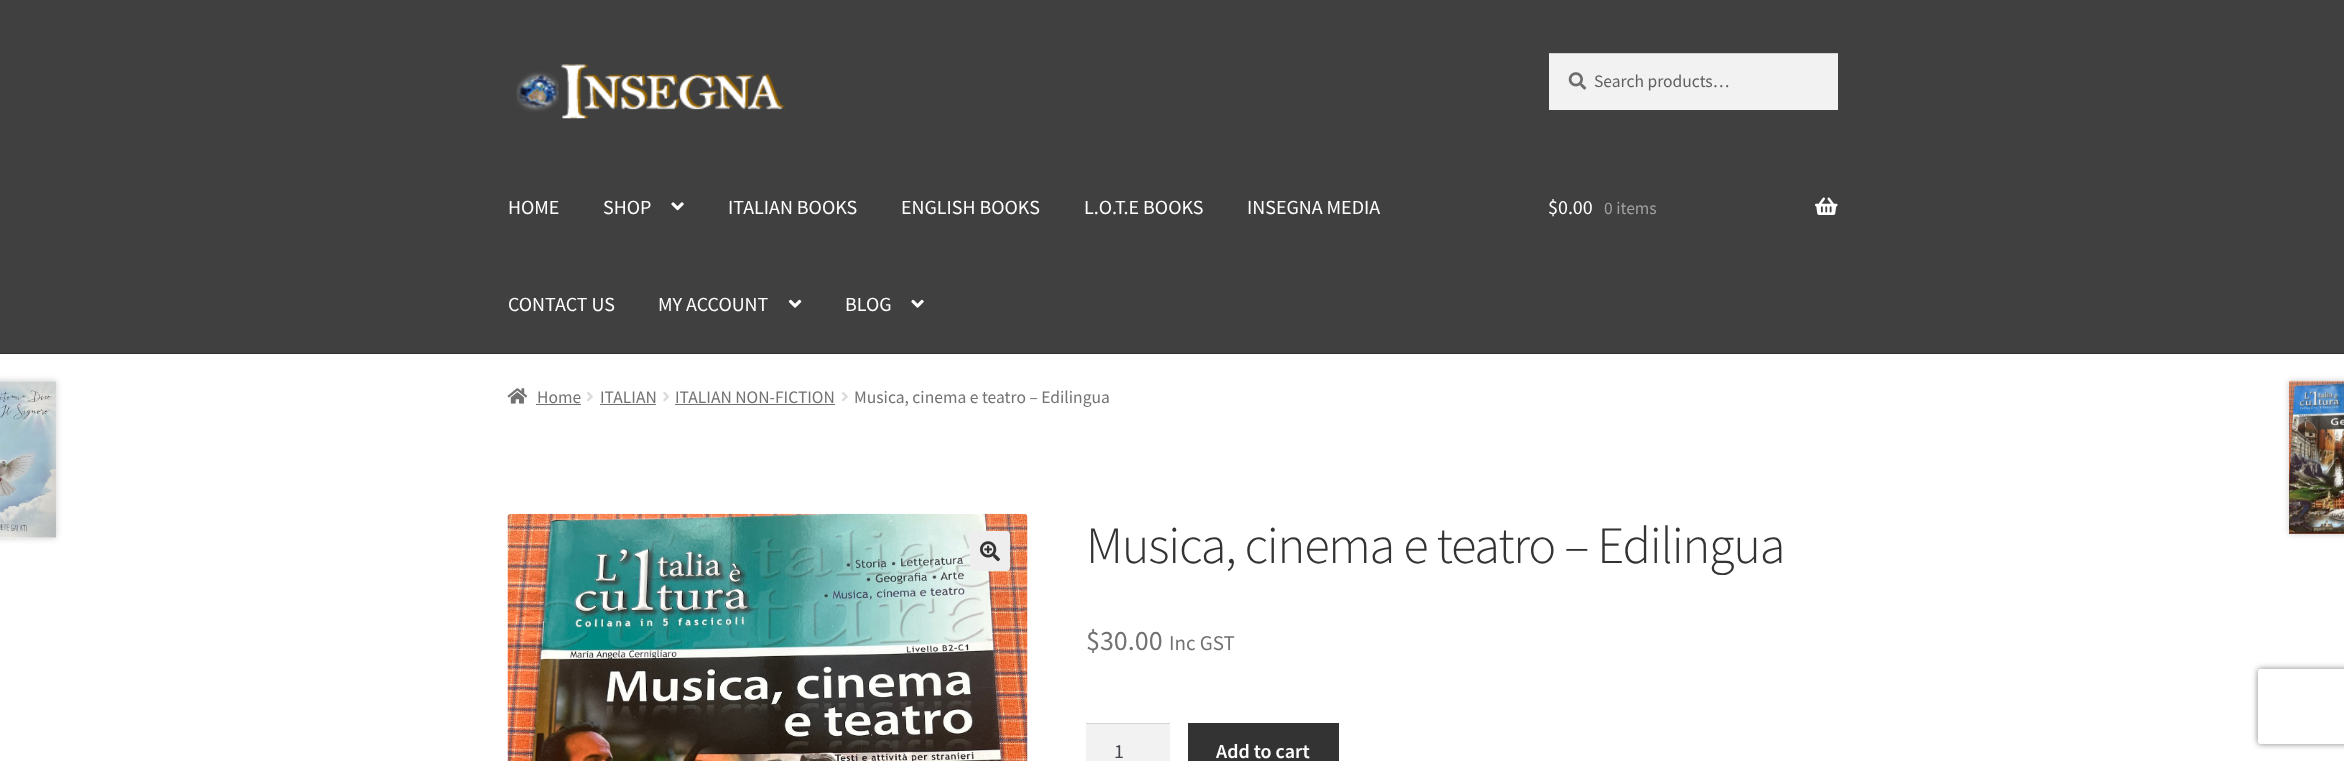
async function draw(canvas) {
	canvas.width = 2344;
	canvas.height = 761;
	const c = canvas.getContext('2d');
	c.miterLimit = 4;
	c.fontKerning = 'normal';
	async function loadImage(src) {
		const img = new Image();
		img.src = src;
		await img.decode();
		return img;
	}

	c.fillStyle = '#fff';
	c.fillRect(0, 0, 2344, 761);
	c.fillStyle = '#404040';
	c.fillRect(0, 0, 2344, 353);
	c.fillStyle = '#313131';
	c.fillRect(0, 353, 2344, 1);
	c.drawImage(await loadImage('img1.png'), 516, 64, 269, 55);
	c.fillStyle = '#f2f2f2';
	c.fillRect(1549, 54, 289, 56);
	c.drawImage(await loadImage('img2.png'), 1568, 72, 19, 18);
	c.fillStyle = '#d4d4d4';
	c.fillRect(1549, 53, 289, 1);
	c.font = '17.5px Source Sans Pro';
	c.fillStyle = '#616161';
	c.fillText('Search products…', 1594, 87);
	c.font = '20px Source Sans Pro';
	c.fillStyle = '#fff';
	c.fillText('HOME', 508, 214);
	c.fillText('SHOP', 603, 214);
	c.drawImage(await loadImage('img3.png'), 671, 202, 13, 9);
	for (const [text, x, y] of [
		['ITALIAN BOOKS', 728, 214],
		['ENGLISH BOOKS', 901, 214],
		['L.O.T.E BOOKS', 1084, 214],
		['INSEGNA MEDIA', 1247, 214],
		['CONTACT US', 508, 311],
		['MY ACCOUNT', 658, 311],
	]) {
		c.fillText(text, x, y);
	}
	c.drawImage(await loadImage('img4.png'), 788, 299, 14, 9);
	c.fillText('BLOG', 845, 311);
	c.drawImage(await loadImage('img5.png'), 911, 299, 13, 9);
	c.fillText('$0.00', 1548, 214);
	c.font = '17.5px Source Sans Pro';
	c.fillStyle = '#a0a0a0';
	c.fillText('0 items', 1604, 214);
	c.drawImage(await loadImage('img6.png'), 1815, 197, 23, 18);
	c.drawImage(await loadImage('img7.png'), 507, 388, 21, 16);
	c.fillStyle = '#727272';
	c.fillText('Home', 537, 403);
	c.fillRect(536, 404, 45, 1);
	c.drawImage(await loadImage('img8.png'), 587, 392, 6, 10);
	c.fillText('ITALIAN', 600, 403);
	c.fillRect(600, 404, 56, 1);
	c.drawImage(await loadImage('img9.png'), 663, 392, 7, 10);
	c.fillText('ITALIAN NON-FICTION', 675, 403);
	c.fillRect(675, 404, 160, 1);
	c.drawImage(await loadImage('img8.png'), 842, 392, 6, 10);
	c.fillText('Musica, cinema e teatro – Edilingua', 854, 403);
	c.fillStyle = '#00000033';
	c.filter = 'blur(3px)';
	c.beginPath();
	c.rect(-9, 381, 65, 157);
	c.fill();
	c.filter = 'none';
	c.fillStyle = '#fff';
	c.fillRect(0, 381, 56, 157);
	c.drawImage(await loadImage('img10.png'), 0, 381, 56, 157);
	c.fillStyle = '#00000033';
	c.filter = 'blur(3px)';
	c.beginPath();
	c.rect(2289, 381, 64, 153);
	c.fill();
	c.filter = 'none';
	c.fillStyle = '#fff';
	c.fillRect(2289, 381, 55, 153);
	c.drawImage(await loadImage('img11.png'), 2289, 380, 55, 154);
	c.drawImage(await loadImage('img12.png'), 507, 513, 521, 248);
	c.fillStyle = '#eee';
	c.beginPath();
	c.roundRect(970, 531, 40, 40, 4);
	c.fill();
	c.drawImage(await loadImage('img13.png'), 980, 541, 20, 21);
	c.letterSpacing = '-1.25px';
	c.font = '300 52.4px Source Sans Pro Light';
	c.fillStyle = '#333';
	c.fillText('Musica, cinema e teatro – Edilingua', 1086, 563);
	c.letterSpacing = '0px';
	c.font = '28px Source Sans Pro';
	c.fillStyle = '#727272';
	c.fillText('$30.00', 1086, 650);
	c.font = '21px Source Sans Pro';
	c.fillText('Inc GST', 1169, 650);
	c.fillStyle = '#f2f2f2';
	c.fillRect(1086, 724, 84, 37);
	c.fillStyle = '#d4d4d4';
	c.fillRect(1086, 723, 84, 1);
	c.font = '20px Source Sans Pro';
	c.fillStyle = '#43454b';
	c.fillText('1', 1114, 758);
	c.fillStyle = '#333';
	c.fillRect(1188, 723, 151, 38);
	c.font = '600 20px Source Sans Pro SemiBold';
	c.fillStyle = '#fff';
	c.fillText('Add to cart', 1216, 758);
	c.save();
	c.beginPath();
	c.moveTo(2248, 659);
	c.lineTo(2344, 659);
	c.lineTo(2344, 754);
	c.lineTo(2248, 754);
	c.closePath();
	c.moveTo(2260.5, 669);
	c.lineTo(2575.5, 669);
	c.bezierCurveTo(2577, 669, 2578, 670, 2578, 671.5);
	c.lineTo(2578, 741.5);
	c.bezierCurveTo(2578, 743, 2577, 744, 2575.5, 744);
	c.lineTo(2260.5, 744);
	c.bezierCurveTo(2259, 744, 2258, 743, 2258, 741.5);
	c.lineTo(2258, 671.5);
	c.bezierCurveTo(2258, 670, 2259, 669, 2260.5, 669);
	c.closePath();
	c.clip('evenodd');
	c.fillStyle = '#808080';
	c.filter = 'blur(3px)';
	c.beginPath();
	c.roundRect(2258, 669, 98, 75, 2.5);
	c.fill();
	c.filter = 'none';
	c.restore();
}

draw(document.querySelector('canvas'));
